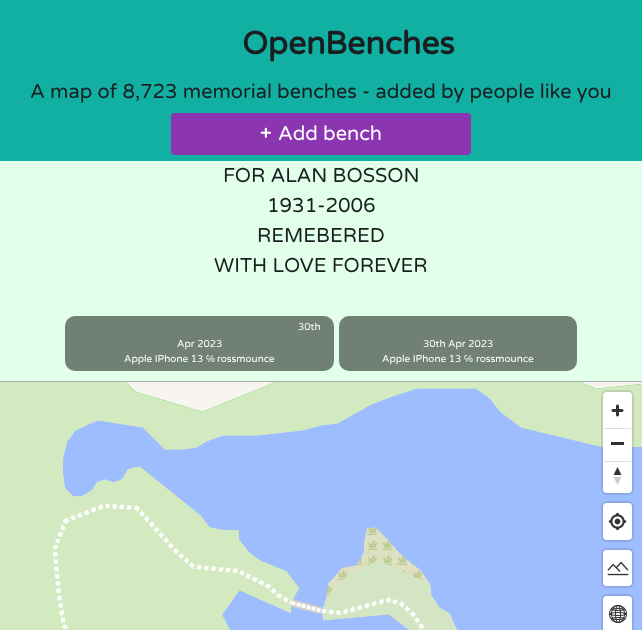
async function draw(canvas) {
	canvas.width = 642;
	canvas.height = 630;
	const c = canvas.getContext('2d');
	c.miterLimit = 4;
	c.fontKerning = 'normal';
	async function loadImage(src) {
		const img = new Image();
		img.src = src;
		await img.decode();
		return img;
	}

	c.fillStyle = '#e1ffe9';
	c.fillRect(0, 0, 642, 630);
	c.fillStyle = '#11b0a3';
	c.fillRect(0, 0, 642, 161);
	c.font = 'bold 32px Varela Round';
	c.fillStyle = '#191e20';
	c.fillText('OpenBenches', 242, 54);
	c.font = '20px Varela Round';
	c.fillText('A map of 8,723 memorial benches - added by people like you', 30, 98);
	c.fillStyle = '#8c35b0';
	c.beginPath();
	c.roundRect(171, 113, 300, 42, 4);
	c.fill();
	c.font = 'bold 20px Varela Round';
	c.fillStyle = '#fff';
	c.fillText('+', 260, 140);
	c.font = '20px Varela Round';
	c.fillText('Add bench', 278, 140);
	c.fillStyle = '#191e20';
	for (const [text, x, y] of [
		['FOR ALAN BOSSON', 223, 182],
		['1931-2006', 267, 212],
		['REMEBERED', 257, 242],
		['WITH LOVE FOREVER', 214, 272],
	]) {
		c.fillText(text, x, y);
	}
	c.fillStyle = '#718075';
	c.beginPath();
	c.roundRect(65, 316, 269, 55, 10);
	c.fill();
	c.font = '10px Varela Round';
	c.fillStyle = '#fff';
	for (const [text, x, y] of [
		['30th', 298, 330],
		['Apr 2023', 177, 347],
		['Apple IPhone 13', 124, 362],
	]) {
		c.fillText(text, x, y);
	}
	c.font = '10px Liberation Sans';
	c.fillText('℅', 206, 362);
	c.font = '10px Varela Round';
	c.fillText('rossmounce', 217, 362);
	c.fillStyle = '#718075';
	c.beginPath();
	c.roundRect(339, 316, 238, 55, 10);
	c.fill();
	c.fillStyle = '#fff';
	c.fillText('30th Apr 2023', 423, 347);
	c.fillText('Apple IPhone 13', 382, 362);
	c.font = '10px Liberation Sans';
	c.fillText('℅', 464, 362);
	c.font = '10px Varela Round';
	c.fillText('rossmounce', 476, 362);
	c.fillStyle = '#aaa';
	c.fillRect(0, 381, 642, 1);
	c.drawImage(await loadImage('img1.png'), 0, 382, 642, 248);
	c.beginPath();
	c.roundRect(602, 391, 31, 103, 5);
	c.strokeStyle = '#0000001a';
	c.lineWidth = 2;
	c.stroke();
	c.fillStyle = '#fff';
	c.beginPath();
	c.roundRect(603, 392, 29, 101, 4);
	c.fill();
	c.drawImage(await loadImage('img2.png'), 611, 404, 13, 13);
	for (const [x, y, w, h, color] of [
		[604, 428, 27, 1, '#ddd'],
		[611, 442, 13, 3, '#333'],
		[604, 461, 27, 1, '#ddd'],
	]) {
		c.fillStyle = color;
		c.fillRect(x, y, w, h);
	}
	c.drawImage(await loadImage('img3.png'), 613, 467, 9, 18);
	c.beginPath();
	c.roundRect(602, 502, 31, 39, 5);
	c.strokeStyle = '#8eaae6';
	c.stroke();
	c.fillStyle = '#fff';
	c.beginPath();
	c.roundRect(603, 503, 29, 37, 4);
	c.fill();
	c.drawImage(await loadImage('img4.png'), 608, 512, 19, 19);
	c.beginPath();
	c.roundRect(602, 549, 31, 38, 5);
	c.stroke();
	c.beginPath();
	c.roundRect(603, 550, 29, 36, 4);
	c.fill();
	c.drawImage(await loadImage('img5.png'), 607, 561, 22, 15);
	c.beginPath();
	c.roundRect(602, 595, 31, 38, 5);
	c.stroke();
	c.beginPath();
	c.roundRect(603, 596, 29, 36, 4);
	c.fill();
	c.drawImage(await loadImage('img6.png'), 609, 605, 18, 18);
}

draw(document.querySelector('canvas'));
